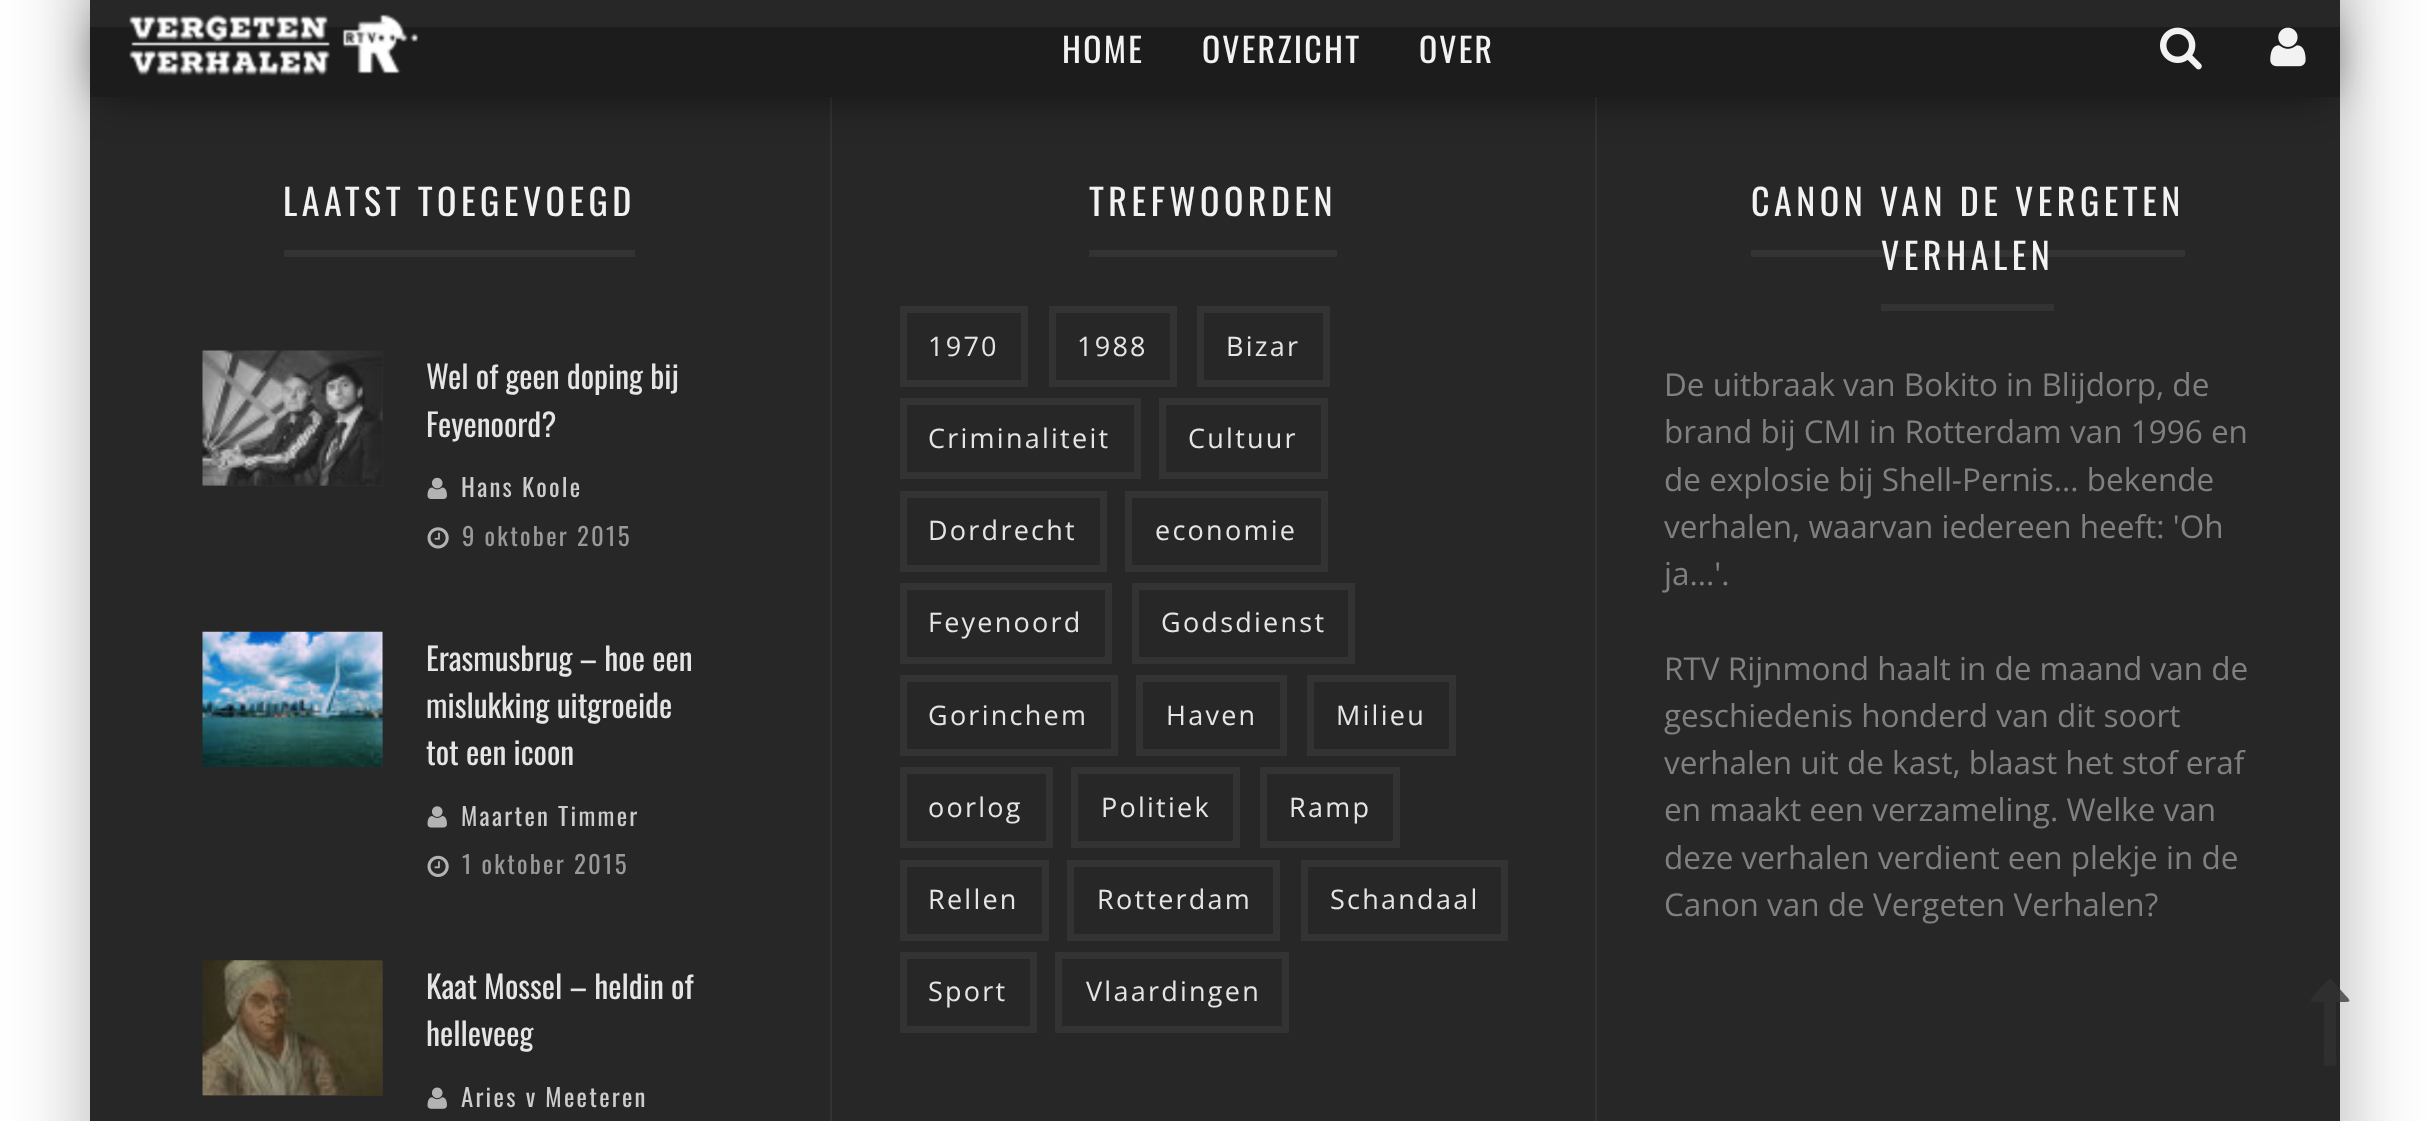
async function draw(canvas) {
	canvas.width = 2427;
	canvas.height = 1121;
	const c = canvas.getContext('2d');
	c.miterLimit = 4;
	c.fontKerning = 'normal';
	async function loadImage(src) {
		const img = new Image();
		img.src = src;
		await img.decode();
		return img;
	}

	c.fillStyle = '#fff';
	c.fillRect(0, 0, 2427, 1121);
	c.save();
	c.beginPath();
	c.moveTo(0, 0);
	c.lineTo(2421, 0);
	c.lineTo(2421, 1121);
	c.lineTo(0, 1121);
	c.closePath();
	c.moveTo(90, -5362);
	c.lineTo(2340, -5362);
	c.lineTo(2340, 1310);
	c.lineTo(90, 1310);
	c.closePath();
	c.clip('evenodd');
	c.fillStyle = '#00000026';
	c.filter = 'blur(34px)';
	c.beginPath();
	c.rect(68, -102, 2250, 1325);
	c.fill();
	c.filter = 'none';
	c.restore();
	c.save();
	c.beginPath();
	c.moveTo(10, 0);
	c.lineTo(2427, 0);
	c.lineTo(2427, 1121);
	c.lineTo(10, 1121);
	c.closePath();
	c.moveTo(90, -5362);
	c.lineTo(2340, -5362);
	c.lineTo(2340, 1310);
	c.lineTo(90, 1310);
	c.closePath();
	c.clip('evenodd');
	c.fillStyle = '#00000026';
	c.filter = 'blur(34px)';
	c.beginPath();
	c.rect(113, -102, 2250, 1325);
	c.fill();
	c.filter = 'none';
	c.restore();
	for (const [x, y, w, h, color] of [
		[90, 72, 2250, 1049, '#272727'],
		[90, 27, 2250, 45, '#333'],
		[830, 72, 2, 1049, '#333'],
		[1595, 72, 2, 1049, '#333'],
	]) {
		c.fillStyle = color;
		c.fillRect(x, y, w, h);
	}
	c.save();
	c.beginPath();
	c.moveTo(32, 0);
	c.lineTo(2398, 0);
	c.lineTo(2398, 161);
	c.lineTo(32, 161);
	c.closePath();
	c.moveTo(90, 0);
	c.lineTo(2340, 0);
	c.lineTo(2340, 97);
	c.lineTo(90, 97);
	c.closePath();
	c.clip('evenodd');
	c.fillStyle = '#00000099';
	c.filter = 'blur(22.5px)';
	c.beginPath();
	c.rect(101, 18, 2228, 74);
	c.fill();
	c.filter = 'none';
	c.restore();
	c.fillStyle = '#1b1b1bf2';
	c.fillRect(90, 0, 2250, 97);
	c.drawImage(await loadImage('img1.png'), 129, 14, 290, 62);
	c.letterSpacing = '2.25px';
	c.font = '33.75px Oswald';
	c.fillStyle = '#f2f2f2';
	for (const [text, x, y] of [
		['HOME', 1062, 63],
		['OVERZICHT', 1202, 63],
		['OVER', 1419, 63],
	]) {
		c.fillText(text, x, y);
	}
	c.drawImage(await loadImage('img2.png'), 2160, 27, 42, 43);
	c.drawImage(await loadImage('img3.png'), 2270, 27, 36, 40);
	c.fillStyle = '#333333bf';
	c.beginPath();
	c.moveTo(2312, 1002);
	c.bezierCurveTo(2311, 1002, 2310, 1000, 2311, 999);
	c.bezierCurveTo(2313, 996, 2328, 979, 2330, 979);
	c.lineTo(2331, 979);
	c.lineTo(2346, 996);
	c.bezierCurveTo(2349, 999, 2352, 1002, 2346, 1002);
	c.lineTo(2336, 1002);
	c.lineTo(2336, 1054);
	c.bezierCurveTo(2336, 1066, 2339, 1066, 2330, 1066);
	c.bezierCurveTo(2321, 1066, 2324, 1066, 2324, 1054);
	c.lineTo(2324, 1002);
	c.closePath();
	c.fill();
	c.letterSpacing = '4.5px';
	c.font = '36px Oswald';
	c.fillStyle = '#f2f2f2';
	c.fillText('LAATST TOEGEVOEGD', 283, 216);
	c.fillStyle = '#333';
	c.fillRect(284, 250, 351, 7);
	c.fillRect(203, 351, 180, 135);
	c.drawImage(await loadImage('img4.png'), 202, 350, 181, 136);
	c.letterSpacing = '0px';
	c.font = '31.5px Oswald';
	c.fillStyle = '#e5e5e5';
	c.fillText('Wel of geen doping bij', 426, 389);
	c.fillText('Feyenoord?', 426, 437);
	c.drawImage(await loadImage('img5.png'), 427, 477, 20, 22);
	c.letterSpacing = '2.25px';
	c.font = '24.75px Oswald';
	c.fillStyle = '#ccc';
	c.fillText('Hans Koole', 461, 497);
	c.drawImage(await loadImage('img6.png'), 427, 527, 22, 22);
	c.fillStyle = '#999';
	c.fillText('9 oktober 2015', 462, 546);
	c.fillStyle = '#333';
	c.fillRect(203, 632, 180, 135);
	c.drawImage(await loadImage('img7.png'), 202, 631, 181, 136);
	c.letterSpacing = '0px';
	c.font = '31.5px Oswald';
	c.fillStyle = '#e5e5e5';
	for (const [text, x, y] of [
		['Erasmusbrug – hoe een', 426, 671],
		['mislukking uitgroeide', 426, 718],
		['tot een icoon', 426, 765],
	]) {
		c.fillText(text, x, y);
	}
	c.drawImage(await loadImage('img8.png'), 427, 806, 20, 22);
	c.letterSpacing = '2.25px';
	c.font = '24.75px Oswald';
	c.fillStyle = '#ccc';
	c.fillText('Maarten Timmer', 461, 826);
	c.drawImage(await loadImage('img9.png'), 427, 855, 22, 22);
	c.fillStyle = '#999';
	c.fillText('1 oktober 2015', 462, 874);
	c.fillStyle = '#333';
	c.fillRect(203, 961, 180, 135);
	c.drawImage(await loadImage('img10.png'), 202, 960, 181, 136);
	c.letterSpacing = '0px';
	c.font = '31.5px Oswald';
	c.fillStyle = '#e5e5e5';
	c.fillText('Kaat Mossel – heldin of', 426, 999);
	c.fillText('helleveeg', 426, 1046);
	c.drawImage(await loadImage('img11.png'), 427, 1087, 20, 22);
	c.letterSpacing = '2.25px';
	c.font = '24.75px Oswald';
	c.fillStyle = '#ccc';
	c.fillText('Aries v Meeteren', 461, 1107);
	c.letterSpacing = '4.5px';
	c.font = '36px Oswald';
	c.fillStyle = '#f2f2f2';
	c.fillText('TREFWOORDEN', 1089, 216);
	c.fillStyle = '#333';
	c.fillRect(1089, 250, 248, 7);
	c.strokeStyle = '#333';
	c.lineWidth = 7;
	c.strokeRect(903.5, 309.5, 121, 74);
	c.letterSpacing = '2.25px';
	c.font = '27px Open Sans';
	c.fillStyle = '#e5e5e5';
	c.fillText('1970', 928, 356);
	c.strokeRect(1052.5, 309.5, 121, 74);
	c.fillText('1988', 1077, 356);
	c.strokeRect(1200.5, 309.5, 126, 74);
	c.fillText('Bizar', 1226, 356);
	c.strokeRect(903.5, 401.5, 234, 74);
	c.fillText('Criminaliteit', 928, 448);
	c.strokeRect(1162.5, 401.5, 162, 74);
	c.fillText('Cultuur', 1188, 448);
	c.strokeRect(903.5, 494.5, 200, 74);
	c.fillText('Dordrecht', 928, 540);
	c.strokeRect(1128.5, 494.5, 196, 74);
	c.fillText('economie', 1155, 540);
	c.strokeRect(903.5, 586.5, 205, 74);
	c.fillText('Feyenoord', 928, 632);
	c.strokeRect(1135.5, 586.5, 216, 74);
	c.fillText('Godsdienst', 1161, 632);
	c.strokeRect(903.5, 678.5, 211, 74);
	c.fillText('Gorinchem', 928, 725);
	c.strokeRect(1139.5, 678.5, 144, 74);
	c.fillText('Haven', 1166, 725);
	c.strokeRect(1310.5, 678.5, 142, 74);
	c.fillText('Milieu', 1336, 725);
	c.strokeRect(903.5, 770.5, 146, 74);
	c.fillText('oorlog', 928, 817);
	c.strokeRect(1074.5, 770.5, 162, 74);
	c.fillText('Politiek', 1101, 817);
	c.strokeRect(1263.5, 770.5, 133, 74);
	c.fillText('Ramp', 1289, 817);
	c.strokeRect(903.5, 863.5, 142, 74);
	c.fillText('Rellen', 928, 909);
	c.strokeRect(1070.5, 863.5, 206, 74);
	c.fillText('Rotterdam', 1097, 909);
	c.strokeRect(1304.5, 863.5, 200, 74);
	c.fillText('Schandaal', 1330, 909);
	c.strokeRect(903.5, 955.5, 130, 74);
	c.fillText('Sport', 928, 1001);
	c.strokeRect(1058.5, 955.5, 227, 74);
	c.fillText('Vlaardingen', 1086, 1001);
	c.letterSpacing = '4.5px';
	c.font = '36px Oswald';
	c.fillStyle = '#f2f2f2';
	c.fillText('CANON VAN DE VERGETEN', 1751, 216);
	c.fillStyle = '#333';
	c.fillRect(1751, 250, 434, 7);
	c.fillStyle = '#f2f2f2';
	c.fillText('VERHALEN', 1881, 270);
	c.fillStyle = '#333';
	c.fillRect(1881, 304, 173, 7);
	c.letterSpacing = '0px';
	c.font = '31.5px Open Sans';
	c.fillStyle = '#808080';
	for (const [text, x, y] of [
		['De uitbraak van Bokito in Blijdorp, de', 1664, 396],
		['brand bij CMI in Rotterdam van 1996 en', 1664, 443],
		['de explosie bij Shell-Pernis... bekende', 1664, 491],
		['verhalen, waarvan iedereen heeft: \'Oh', 1664, 538],
		['ja...\'.', 1664, 585],
		['RTV Rijnmond haalt in de maand van de', 1664, 680],
		['geschiedenis honderd van dit soort', 1664, 727],
		['verhalen uit de kast, blaast het stof eraf', 1664, 774],
		['en maakt een verzameling. Welke van', 1664, 821],
		['deze verhalen verdient een plekje in de', 1664, 869],
		['Canon van de Vergeten Verhalen?', 1664, 916],
	]) {
		c.fillText(text, x, y);
	}
}

draw(document.querySelector('canvas'));
